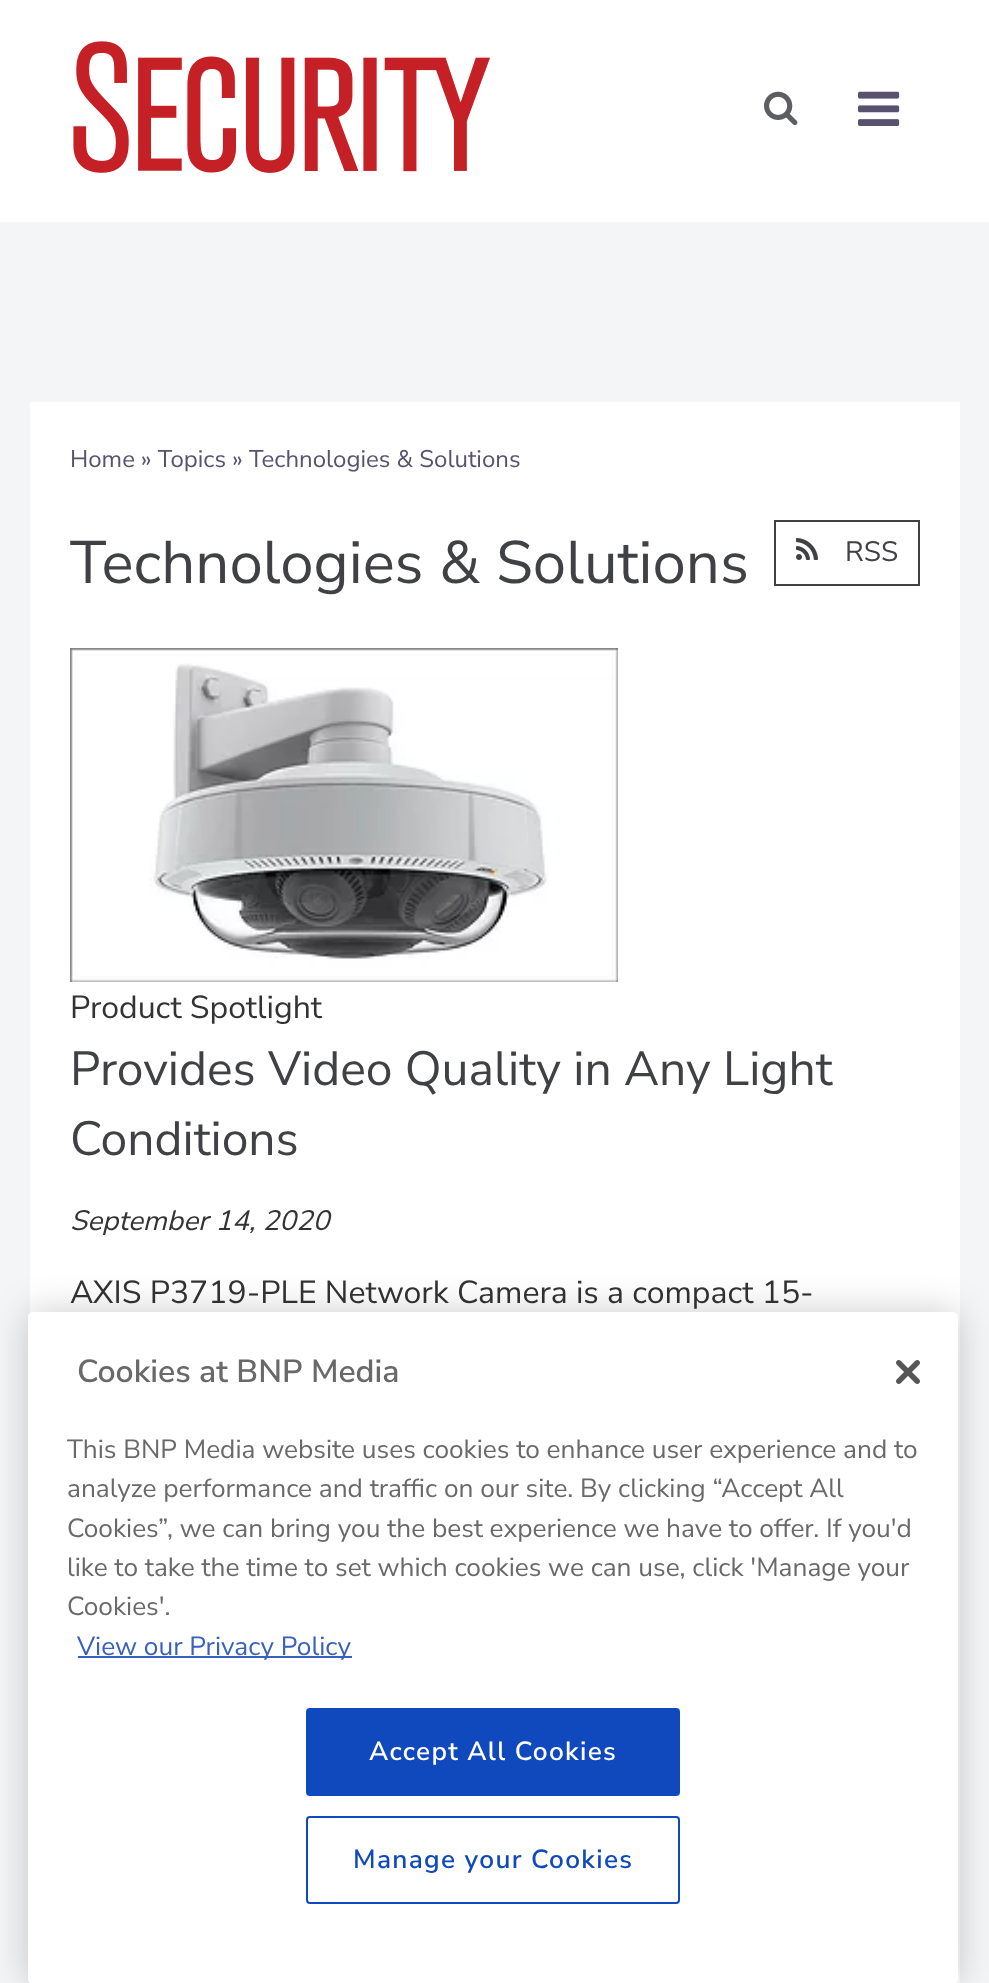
async function draw(canvas) {
	canvas.width = 989;
	canvas.height = 1983;
	const c = canvas.getContext('2d');
	c.miterLimit = 4;
	c.fontKerning = 'normal';
	async function loadImage(src) {
		const img = new Image();
		img.src = src;
		await img.decode();
		return img;
	}

	c.fillStyle = '#f4f5f6';
	c.fillRect(0, 0, 989, 1983);
	c.fillStyle = '#fff';
	c.fillRect(0, 0, 989, 222);
	c.drawImage(await loadImage('img1.png'), 72, 40, 419, 134);
	c.drawImage(await loadImage('img2.png'), 764, 91, 34, 35);
	c.drawImage(await loadImage('img3.png'), 858, 91, 42, 35);
	c.fillRect(30, 402, 930, 1581);
	c.font = '24px Nunito Sans';
	c.fillStyle = '#58526f';
	c.fillText('Home » Topics » Technologies & Solutions', 70, 467);
	c.font = '60px Nunito Sans';
	c.fillStyle = '#404144';
	c.fillText('Technologies & Solutions', 70, 583);
	c.strokeStyle = '#404144';
	c.lineWidth = 2;
	c.strokeRect(775, 521, 144, 64);
	c.drawImage(await loadImage('img4.png'), 796, 538, 22, 22);
	c.font = '28px Nunito Sans';
	c.fillText('RSS', 845, 561);
	c.drawImage(await loadImage('img5.png'), 70, 648, 548, 334);
	c.font = '32px Nunito Sans';
	c.fillStyle = '#333';
	c.fillText('Product Spotlight', 70, 1018);
	c.font = '48px Nunito Sans';
	c.fillStyle = '#404144';
	c.fillText('Provides Video Quality in Any Light', 70, 1085);
	c.fillText('Conditions', 70, 1155);
	c.font = 'italic 28px Nunito Sans';
	c.fillStyle = '#333';
	c.fillText('September 14, 2020', 70, 1230);
	c.font = '32px Nunito Sans';
	c.fillText('AXIS P3719-PLE Network Camera is a compact 15-', 70, 1303);
	c.fillStyle = '#00000033';
	c.filter = 'blur(18px)';
	c.beginPath();
	c.roundRect(28, 1312, 930, 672, 5);
	c.fill();
	c.filter = 'none';
	c.fillStyle = '#fff';
	c.beginPath();
	c.roundRect(28, 1312, 930, 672, 5);
	c.fill();
	c.font = '600 32px Nunito Sans';
	c.fillStyle = '#696969';
	c.fillText('Cookies at BNP Media', 77, 1382);
	c.font = '26.25px Nunito Sans';
	for (const [text, x, y] of [
		['This BNP Media website uses cookies to enhance user experience and to', 67, 1458],
		['analyze performance and traffic on our site. By clicking “Accept All', 67, 1497],
		['Cookies”, we can bring you the best experience we have to offer. If you\'d', 67, 1537],
		['like to take the time to set which cookies we can use, click \'Manage your', 67, 1576],
		['Cookies\'.', 67, 1615],
	]) {
		c.fillText(text, x, y);
	}
	c.fillStyle = '#3860be';
	c.fillRect(78, 1656, 274, 2);
	c.fillText('View our Privacy Policy', 77, 1655);
	c.drawImage(await loadImage('img6.png'), 896, 1360, 24, 24);
	c.fillStyle = '#0f49bd';
	c.beginPath();
	c.roundRect(307, 1709, 372, 86, 3);
	c.fill();
	c.strokeStyle = '#0f49bd';
	c.stroke();
	c.letterSpacing = '1.3px';
	c.font = '600 26.25px Nunito Sans';
	c.fillStyle = '#fff';
	c.fillText('Accept All Cookies', 369, 1760);
	c.beginPath();
	c.roundRect(307, 1817, 372, 86, 3);
	c.stroke();
	c.fillStyle = '#0f49bd';
	c.fillText('Manage your Cookies', 353, 1868);
}

draw(document.querySelector('canvas'));
